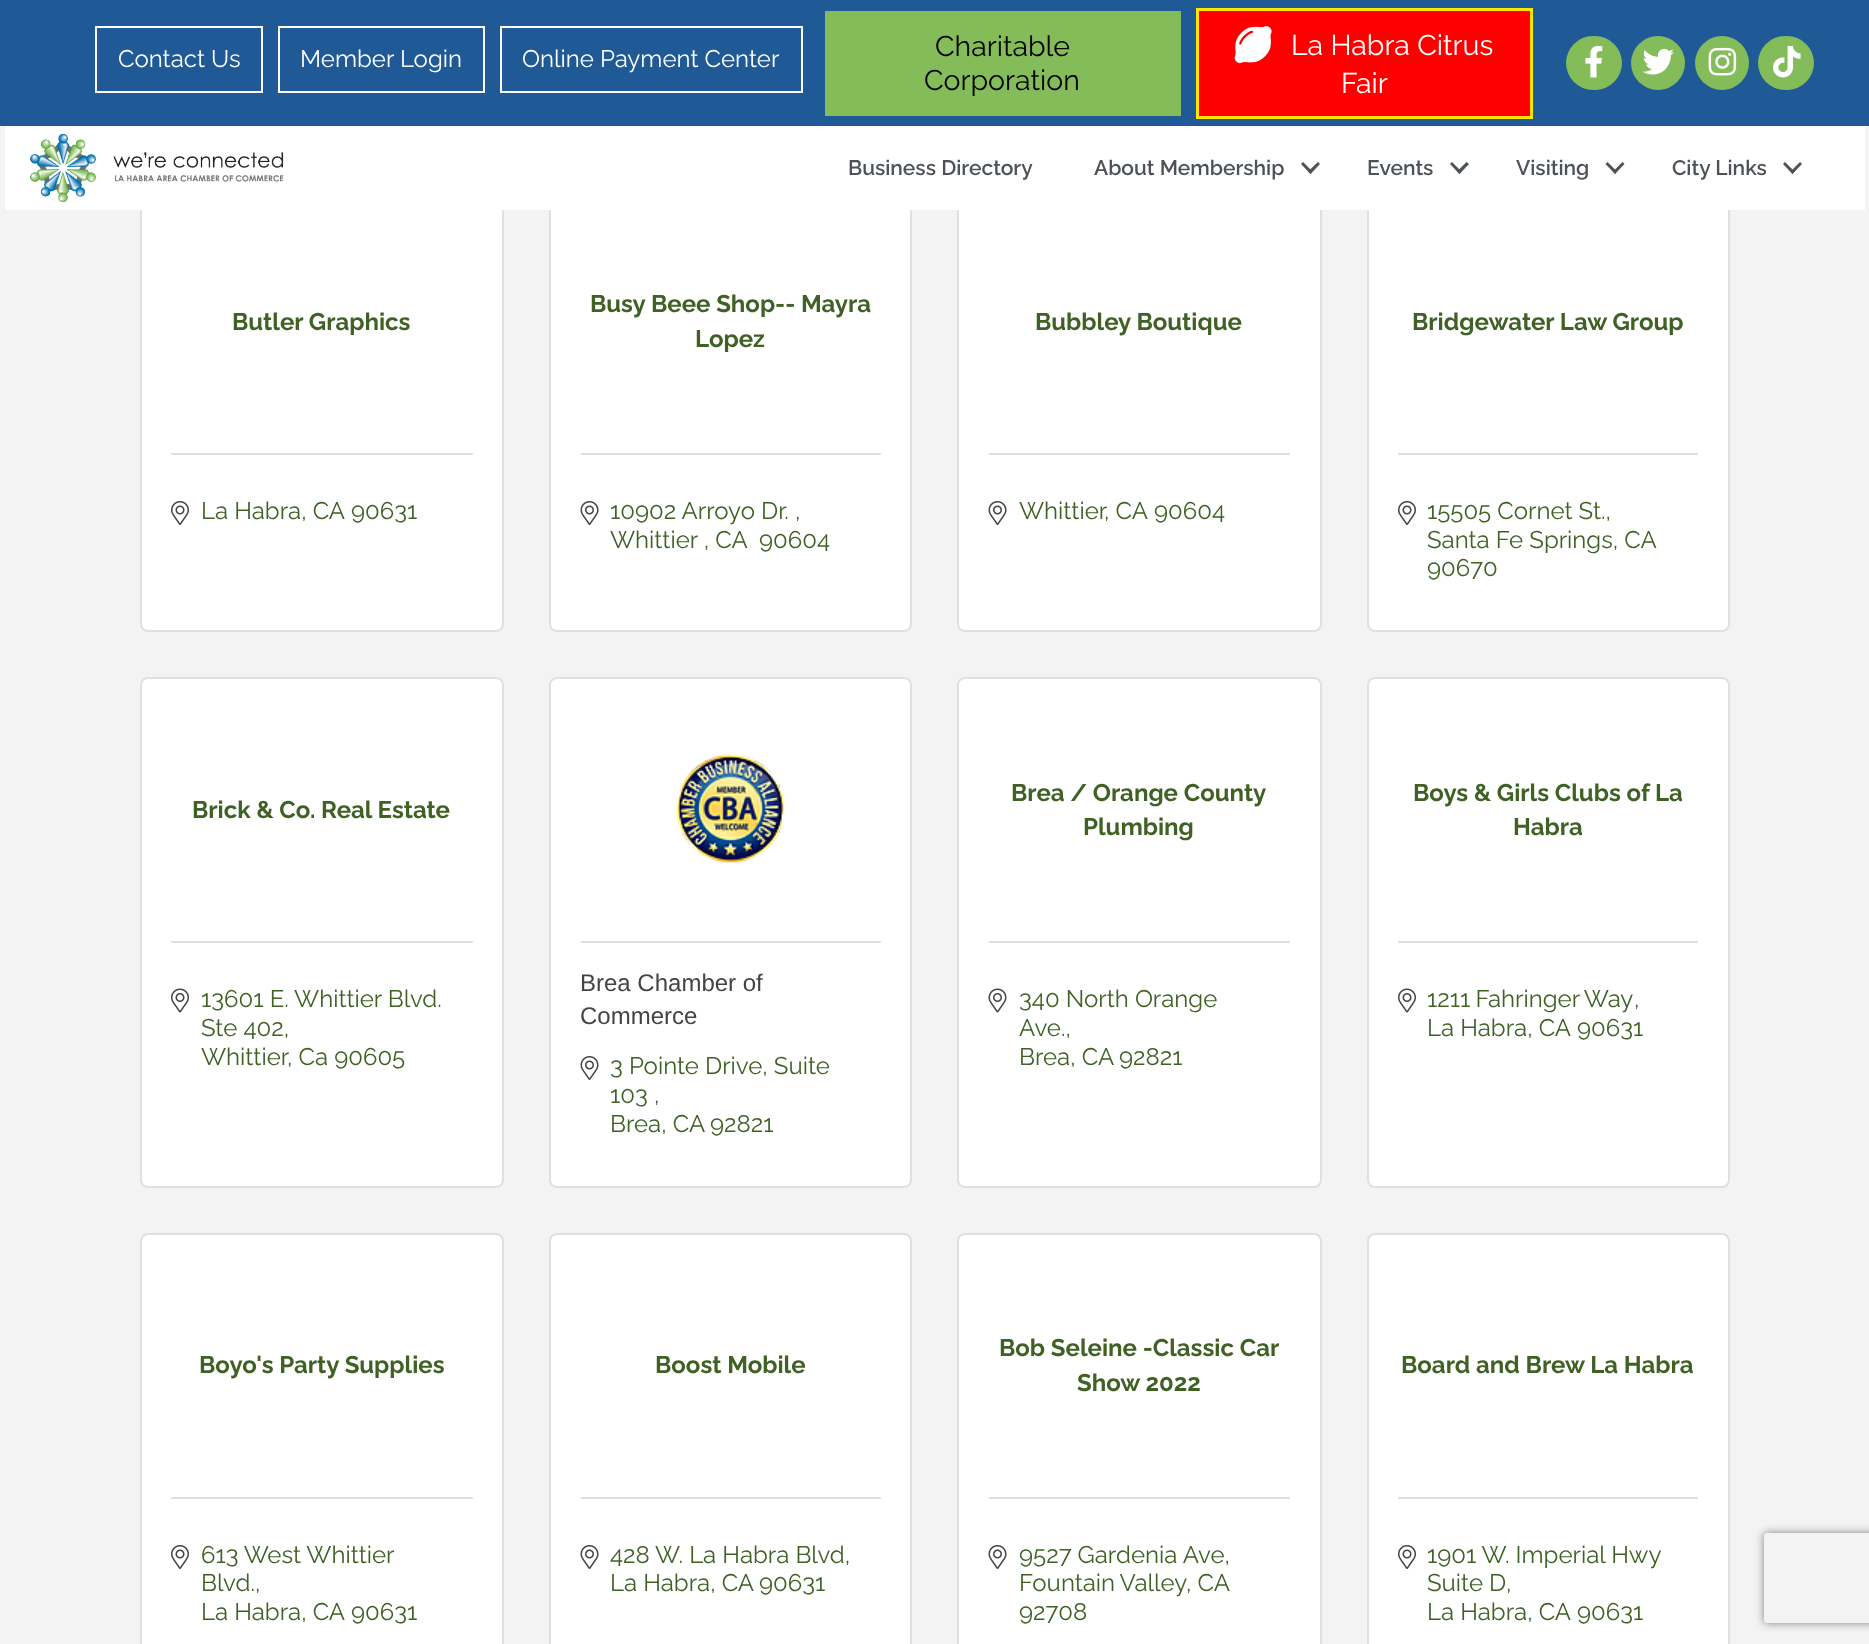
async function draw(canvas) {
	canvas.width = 1869;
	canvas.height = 1644;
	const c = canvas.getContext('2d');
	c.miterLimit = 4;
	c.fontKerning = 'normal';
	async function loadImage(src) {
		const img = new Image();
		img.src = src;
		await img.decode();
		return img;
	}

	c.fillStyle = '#f3f3f3';
	c.fillRect(0, 0, 1869, 1644);
	c.fillStyle = '#1f5a97';
	c.fillRect(0, 0, 1869, 126);
	c.strokeStyle = '#fff';
	c.lineWidth = 2;
	c.strokeRect(96, 27, 166, 65);
	c.font = '24px Raleway';
	c.fillStyle = '#fff';
	c.fillText('Contact Us', 118, 67);
	c.strokeRect(279, 27, 205, 65);
	c.fillText('Member Login', 300, 67);
	c.strokeRect(501, 27, 301, 65);
	c.fillText('Online Payment Center', 522, 67);
	c.fillStyle = '#83bc58';
	c.fillRect(825, 11, 356, 105);
	c.font = '28.5px Raleway';
	c.fillStyle = '#000';
	c.fillText('Charitable', 935, 56);
	c.fillText('Corporation', 924, 90);
	c.fillStyle = '#f00';
	c.beginPath();
	c.rect(1197.5, 9.5, 334, 108);
	c.fill();
	c.strokeStyle = '#ffe500';
	c.lineWidth = 3;
	c.stroke();
	c.drawImage(await loadImage('img1.png'), 1234, 26, 38, 38);
	c.fillStyle = '#fff';
	c.fillText('La Habra Citrus', 1291, 55);
	c.fillText('Fair', 1341, 93);
	c.fillStyle = '#83bc58';
	c.beginPath();
	c.roundRect(1566, 36, 56, 54, 27);
	c.fill();
	c.drawImage(await loadImage('img2.png'), 1585, 45, 18, 33);
	c.beginPath();
	c.arc(1658, 63, 27, 0, 2 * Math.PI);
	c.fill();
	c.drawImage(await loadImage('img3.png'), 1642, 48, 32, 27);
	c.beginPath();
	c.arc(1722, 63, 27, 0, 2 * Math.PI);
	c.fill();
	c.drawImage(await loadImage('img4.png'), 1708, 47, 29, 29);
	c.beginPath();
	c.roundRect(1758, 36, 56, 54, 27);
	c.fill();
	c.drawImage(await loadImage('img5.png'), 1773, 45, 28, 33);
	c.fillStyle = '#fff';
	c.beginPath();
	c.roundRect(140, 189, 364, 443, 8);
	c.fill();
	c.beginPath();
	c.roundRect(141, 190, 362, 441, 7);
	c.strokeStyle = '#0000001f';
	c.lineWidth = 2;
	c.stroke();
	c.beginPath();
	c.roundRect(549, 189, 363, 443, 8);
	c.fill();
	c.beginPath();
	c.roundRect(550, 190, 361, 441, 7);
	c.stroke();
	c.beginPath();
	c.roundRect(957, 189, 365, 443, 8);
	c.fill();
	c.beginPath();
	c.roundRect(958, 190, 363, 441, 7);
	c.stroke();
	c.beginPath();
	c.roundRect(1367, 189, 363, 443, 8);
	c.fill();
	c.beginPath();
	c.roundRect(1368, 190, 361, 441, 7);
	c.stroke();
	c.fillRect(5, 126, 1860, 84);
	c.drawImage(await loadImage('img6.png'), 30, 134, 254, 69);
	c.font = '600 21px Raleway';
	c.fillStyle = '#4c5256';
	c.fillText('Business Directory', 848, 175);
	c.fillText('About Membership', 1094, 175);
	c.beginPath();
	c.moveTo(1318, 162);
	c.lineTo(1320, 164);
	c.lineTo(1310.5, 174);
	c.lineTo(1308, 171.5);
	c.closePath();
	c.fill();
	c.beginPath();
	c.moveTo(1303, 162);
	c.lineTo(1312.5, 171.5);
	c.lineTo(1310.5, 174);
	c.lineTo(1301, 164);
	c.closePath();
	c.fill();
	c.fillText('Events', 1367, 175);
	c.beginPath();
	c.moveTo(1466.5, 162);
	c.lineTo(1469, 164);
	c.lineTo(1459.5, 174);
	c.lineTo(1457, 171.5);
	c.closePath();
	c.fill();
	c.beginPath();
	c.moveTo(1452, 162);
	c.lineTo(1461.5, 171.5);
	c.lineTo(1459.5, 174);
	c.lineTo(1450, 164);
	c.closePath();
	c.fill();
	c.fillText('Visiting', 1516, 175);
	c.beginPath();
	c.moveTo(1622.5, 162);
	c.lineTo(1624.5, 164);
	c.lineTo(1615, 174);
	c.lineTo(1613, 171.5);
	c.closePath();
	c.fill();
	c.beginPath();
	c.moveTo(1607.5, 162);
	c.lineTo(1617, 171.5);
	c.lineTo(1615, 174);
	c.lineTo(1605.5, 164);
	c.closePath();
	c.fill();
	c.fillText('City Links', 1672, 175);
	c.beginPath();
	c.moveTo(1800, 162);
	c.lineTo(1802, 164);
	c.lineTo(1792.5, 174);
	c.lineTo(1790.5, 171.5);
	c.closePath();
	c.fill();
	c.beginPath();
	c.moveTo(1785, 162);
	c.lineTo(1794.5, 171.5);
	c.lineTo(1792.5, 174);
	c.lineTo(1783, 164);
	c.closePath();
	c.fill();
	c.font = 'bold 24px Raleway';
	c.fillStyle = '#3f6124';
	c.fillText('Butler Graphics', 232, 330);
	c.fillStyle = '#dfdfdf';
	c.fillRect(171, 453, 302, 2);
	c.drawImage(await loadImage('img7.png'), 171, 501, 18, 24);
	c.font = '24px Raleway';
	c.fillStyle = '#3f6124';
	c.fillText('La Habra, CA', 201, 519);
	c.fillText('90631', 351, 519);
	c.font = 'bold 24px Raleway';
	c.fillText('Busy Beee Shop-- Mayra', 590, 312);
	c.fillText('Lopez', 695, 347);
	c.fillStyle = '#dfdfdf';
	c.fillRect(581, 453, 300, 2);
	c.drawImage(await loadImage('img8.png'), 580, 501, 19, 24);
	c.font = '24px Raleway';
	c.fillStyle = '#3f6124';
	for (const [text, x, y] of [
		['10902 Arroyo Dr. ,', 610, 519],
		['Whittier , CA', 610, 548],
		['90604', 759, 548],
	]) {
		c.fillText(text, x, y);
	}
	c.font = 'bold 24px Raleway';
	c.fillText('Bubbley Boutique', 1035, 330);
	c.fillStyle = '#dfdfdf';
	c.fillRect(989, 453, 301, 2);
	c.drawImage(await loadImage('img8.png'), 988, 501, 19, 24);
	c.font = '24px Raleway';
	c.fillStyle = '#3f6124';
	for (const [text, x, y] of [
		['Whittier', 1019, 519],
		[', CA', 1104, 519],
		['90604', 1154, 519],
	]) {
		c.fillText(text, x, y);
	}
	c.font = 'bold 24px Raleway';
	c.fillText('Bridgewater Law Group', 1412, 330);
	c.fillStyle = '#dfdfdf';
	c.fillRect(1398, 453, 300, 2);
	c.drawImage(await loadImage('img7.png'), 1398, 501, 18, 24);
	c.font = '24px Raleway';
	c.fillStyle = '#3f6124';
	for (const [text, x, y] of [
		['15505 Cornet St.,', 1427, 519],
		['Santa Fe Springs, CA', 1427, 548],
		['90670', 1427, 576],
	]) {
		c.fillText(text, x, y);
	}
	c.fillStyle = '#fff';
	c.beginPath();
	c.roundRect(140, 677, 364, 511, 8);
	c.fill();
	c.beginPath();
	c.roundRect(141, 678, 362, 509, 7);
	c.stroke();
	c.font = 'bold 24px Raleway';
	c.fillStyle = '#3f6124';
	c.fillText('Brick & Co. Real Estate', 192, 818);
	c.fillStyle = '#dfdfdf';
	c.fillRect(171, 941, 302, 2);
	c.drawImage(await loadImage('img9.png'), 171, 988, 18, 25);
	c.font = '24px Raleway';
	c.fillStyle = '#3f6124';
	for (const [text, x, y] of [
		['13601 E. Whittier Blvd.', 201, 1007],
		['Ste 402,', 201, 1036],
		['Whittier', 201, 1065],
		[', Ca 90605', 287, 1065],
	]) {
		c.fillText(text, x, y);
	}
	c.fillStyle = '#fff';
	c.beginPath();
	c.roundRect(549, 677, 363, 511, 8);
	c.fill();
	c.beginPath();
	c.roundRect(550, 678, 361, 509, 7);
	c.stroke();
	c.drawImage(await loadImage('img10.png'), 676, 754, 109, 109);
	c.fillStyle = '#dfdfdf';
	c.fillRect(581, 941, 300, 2);
	c.font = '24px Liberation Sans';
	c.fillStyle = '#444';
	c.fillText('Brea Chamber of', 580, 991);
	c.fillText('Commerce', 580, 1024);
	c.drawImage(await loadImage('img8.png'), 580, 1056, 19, 24);
	c.font = '24px Raleway';
	c.fillStyle = '#3f6124';
	for (const [text, x, y] of [
		['3 Pointe Drive, Suite', 610, 1074],
		['103 ,', 610, 1103],
		['Brea, CA', 610, 1132],
		['92821', 710, 1132],
	]) {
		c.fillText(text, x, y);
	}
	c.fillStyle = '#fff';
	c.beginPath();
	c.roundRect(957, 677, 365, 511, 8);
	c.fill();
	c.beginPath();
	c.roundRect(958, 678, 363, 509, 7);
	c.stroke();
	c.font = 'bold 24px Raleway';
	c.fillStyle = '#3f6124';
	c.fillText('Brea / Orange County', 1011, 801);
	c.fillText('Plumbing', 1083, 835);
	c.fillStyle = '#dfdfdf';
	c.fillRect(989, 941, 301, 2);
	c.drawImage(await loadImage('img11.png'), 988, 988, 19, 25);
	c.font = '24px Raleway';
	c.fillStyle = '#3f6124';
	for (const [text, x, y] of [
		['340 North Orange', 1019, 1007],
		['Ave.,', 1019, 1036],
		['Brea, CA', 1019, 1065],
		['92821', 1119, 1065],
	]) {
		c.fillText(text, x, y);
	}
	c.fillStyle = '#fff';
	c.beginPath();
	c.roundRect(1367, 677, 363, 511, 8);
	c.fill();
	c.beginPath();
	c.roundRect(1368, 678, 361, 509, 7);
	c.stroke();
	c.font = 'bold 24px Raleway';
	c.fillStyle = '#3f6124';
	c.fillText('Boys & Girls Clubs of La', 1413, 801);
	c.fillText('Habra', 1513, 835);
	c.fillStyle = '#dfdfdf';
	c.fillRect(1398, 941, 300, 2);
	c.drawImage(await loadImage('img9.png'), 1398, 988, 18, 25);
	c.wordSpacing = '-1px';
	c.font = '24px Raleway';
	c.fillStyle = '#3f6124';
	c.fillText('1211 Fahringer Way', 1427, 1007);
	c.wordSpacing = '0px';
	for (const [text, x, y] of [
		[',', 1634, 1007],
		['La Habra, CA', 1427, 1036],
		['90631', 1577, 1036],
	]) {
		c.fillText(text, x, y);
	}
	c.fillStyle = '#fff';
	c.beginPath();
	c.roundRect(140, 1233, 364, 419, 8);
	c.fill();
	c.beginPath();
	c.roundRect(141, 1234, 362, 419, 7);
	c.stroke();
	c.font = 'bold 24px Raleway';
	c.fillStyle = '#3f6124';
	c.fillText('Boyo\'s Party Supplies', 199, 1373);
	c.fillStyle = '#dfdfdf';
	c.fillRect(171, 1497, 302, 2);
	c.drawImage(await loadImage('img7.png'), 171, 1545, 18, 24);
	c.font = '24px Raleway';
	c.fillStyle = '#3f6124';
	for (const [text, x, y] of [
		['613 West Whittier', 201, 1563],
		['Blvd.,', 201, 1591],
		['La Habra, CA', 201, 1620],
		['90631', 351, 1620],
	]) {
		c.fillText(text, x, y);
	}
	c.fillStyle = '#fff';
	c.beginPath();
	c.roundRect(549, 1233, 363, 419, 8);
	c.fill();
	c.beginPath();
	c.roundRect(550, 1234, 361, 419, 7);
	c.stroke();
	c.font = 'bold 24px Raleway';
	c.fillStyle = '#3f6124';
	c.fillText('Boost Mobile', 655, 1373);
	c.fillStyle = '#dfdfdf';
	c.fillRect(581, 1497, 300, 2);
	c.drawImage(await loadImage('img8.png'), 580, 1545, 19, 24);
	c.font = '24px Raleway';
	c.fillStyle = '#3f6124';
	for (const [text, x, y] of [
		['428 W. La Habra Blvd,', 610, 1563],
		['La Habra, CA', 610, 1591],
		['90631', 759, 1591],
	]) {
		c.fillText(text, x, y);
	}
	c.fillStyle = '#fff';
	c.beginPath();
	c.roundRect(957, 1233, 365, 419, 8);
	c.fill();
	c.beginPath();
	c.roundRect(958, 1234, 363, 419, 7);
	c.stroke();
	c.font = 'bold 24px Raleway';
	c.fillStyle = '#3f6124';
	c.fillText('Bob Seleine -Classic Car', 999, 1356);
	c.fillText('Show 2022', 1077, 1391);
	c.fillStyle = '#dfdfdf';
	c.fillRect(989, 1497, 301, 2);
	c.drawImage(await loadImage('img8.png'), 988, 1545, 19, 24);
	c.font = '24px Raleway';
	c.fillStyle = '#3f6124';
	c.fillText('9527 Gardenia Ave,', 1019, 1563);
	c.wordSpacing = '-1px';
	c.fillText('Fountain Valley', 1019, 1591);
	c.wordSpacing = '0px';
	c.fillText(', CA', 1186, 1591);
	c.fillText('92708', 1019, 1620);
	c.fillStyle = '#fff';
	c.beginPath();
	c.roundRect(1367, 1233, 363, 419, 8);
	c.fill();
	c.beginPath();
	c.roundRect(1368, 1234, 361, 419, 7);
	c.stroke();
	c.font = 'bold 24px Raleway';
	c.fillStyle = '#3f6124';
	c.fillText('Board and Brew La Habra', 1401, 1373);
	c.fillStyle = '#dfdfdf';
	c.fillRect(1398, 1497, 300, 2);
	c.drawImage(await loadImage('img7.png'), 1398, 1545, 18, 24);
	c.font = '24px Raleway';
	c.fillStyle = '#3f6124';
	for (const [text, x, y] of [
		['1901 W. Imperial Hwy', 1427, 1563],
		['Suite D', 1427, 1591],
		[',', 1506, 1591],
		['La Habra, CA', 1427, 1620],
		['90631', 1577, 1620],
	]) {
		c.fillText(text, x, y);
	}
	c.save();
	c.beginPath();
	c.moveTo(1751, 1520);
	c.lineTo(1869, 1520);
	c.lineTo(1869, 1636);
	c.lineTo(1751, 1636);
	c.closePath();
	c.moveTo(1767, 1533);
	c.lineTo(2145, 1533);
	c.bezierCurveTo(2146.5, 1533, 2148, 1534.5, 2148, 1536);
	c.lineTo(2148, 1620);
	c.bezierCurveTo(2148, 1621.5, 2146.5, 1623, 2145, 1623);
	c.lineTo(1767, 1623);
	c.bezierCurveTo(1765.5, 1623, 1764, 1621.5, 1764, 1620);
	c.lineTo(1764, 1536);
	c.bezierCurveTo(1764, 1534.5, 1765.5, 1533, 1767, 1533);
	c.closePath();
	c.clip('evenodd');
	c.fillStyle = '#808080';
	c.filter = 'blur(4px)';
	c.beginPath();
	c.roundRect(1764, 1533, 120, 90, 3);
	c.fill();
	c.filter = 'none';
	c.restore();
}

draw(document.querySelector('canvas'));
